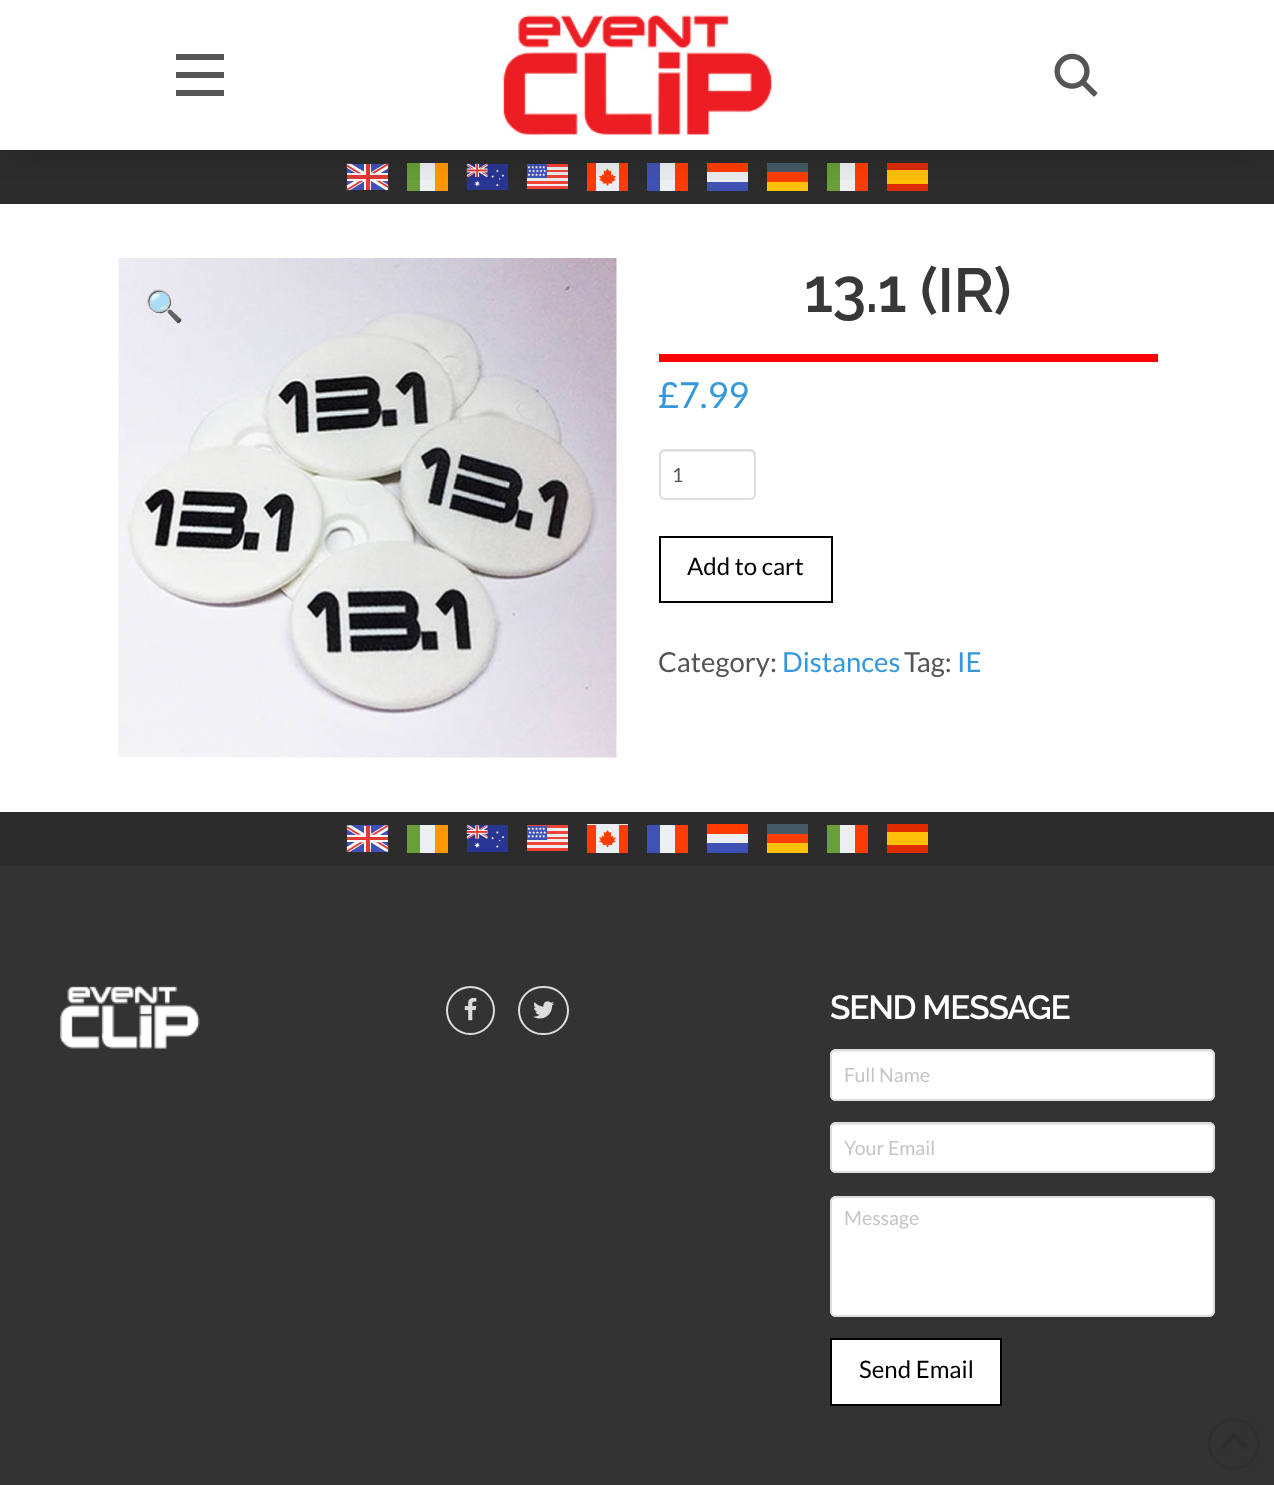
async function draw(canvas) {
	canvas.width = 1274;
	canvas.height = 1485;
	const c = canvas.getContext('2d');
	c.miterLimit = 4;
	c.fontKerning = 'normal';
	async function loadImage(src) {
		const img = new Image();
		img.src = src;
		await img.decode();
		return img;
	}

	c.fillStyle = '#fff';
	c.fillRect(0, 0, 1274, 1485);
	c.fillStyle = '#2c2c2c';
	c.fillRect(0, 150, 1274, 54);
	c.drawImage(await loadImage('img3.png'), 346, 163, 43, 28);
	for (const [x, y, w, h, color] of [
		[420, 163, 15, 28, '#eceff1'],
		[435, 163, 13, 28, '#ff9800'],
		[407, 163, 13, 28, '#689f38'],
	]) {
		c.fillStyle = color;
		c.fillRect(x, y, w, h);
	}
	c.drawImage(await loadImage('img4.png'), 466, 163, 42, 27);
	c.drawImage(await loadImage('img5.png'), 527, 164, 41, 25);
	c.drawImage(await loadImage('img6.png'), 587, 163, 41, 28);
	for (const [x, y, w, h, color] of [
		[660, 163, 15, 28, '#eceff1'],
		[675, 163, 13, 28, '#ff3d00'],
		[647, 163, 13, 28, '#3f51b5'],
		[707, 182, 41, 9, '#3f51b5'],
		[707, 172, 41, 10, '#eceff1'],
		[707, 163, 41, 9, '#ff3d00'],
		[767, 182, 41, 9, '#ffc107'],
		[767, 172, 41, 10, '#ff3d00'],
		[767, 163, 41, 9, '#455a64'],
		[840, 163, 15, 28, '#eceff1'],
		[855, 163, 13, 28, '#ff3d00'],
		[827, 163, 13, 28, '#689f38'],
		[887, 163, 41, 28, '#dd2c00'],
		[887, 170, 41, 14, '#ffc107'],
	]) {
		c.fillStyle = color;
		c.fillRect(x, y, w, h);
	}
	c.save();
	c.beginPath();
	c.rect(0, 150, 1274, 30);
	c.clip();
	c.fillStyle = '#00000026';
	c.filter = 'blur(24px)';
	c.beginPath();
	c.rect(0, 3, 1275, 150);
	c.fill();
	c.filter = 'none';
	c.restore();
	for (const [x, y, w, h, color] of [
		[176, 54, 48, 6, '#555'],
		[176, 72, 48, 6, '#555'],
		[176, 90, 48, 6, '#555'],
	]) {
		c.fillStyle = color;
		c.fillRect(x, y, w, h);
	}
	c.drawImage(await loadImage('img1.png'), 503, 13, 269, 122);
	c.drawImage(await loadImage('img2.png'), 1054, 53, 44, 44);
	c.drawImage(await loadImage('img7.png'), 118, 258, 499, 500);
	c.font = '31px Noto Color Emoji';
	c.fillStyle = '#3498db';
	c.fillText('🔍', 145, 317);
	c.fillStyle = '#f00';
	c.fillRect(659, 354, 499, 8);
	c.letterSpacing = '-1px';
	c.font = '600 62px Raleway';
	c.fillStyle = '#383838';
	c.fillText('13.1 (IR)', 804, 312);
	c.letterSpacing = '0px';
	c.font = '36px Lato';
	c.fillStyle = '#3498db';
	c.fillText('£7.99', 658, 408);
	c.fillStyle = '#ececec';
	c.beginPath();
	c.moveTo(664, 452);
	c.lineTo(750, 452);
	c.bezierCurveTo(755, 452, 754, 460, 754, 462);
	c.lineTo(754, 496);
	c.bezierCurveTo(755, 495, 755, 494, 755, 493);
	c.lineTo(755, 455);
	c.bezierCurveTo(755, 452, 753, 450, 750, 450);
	c.lineTo(665, 450);
	c.bezierCurveTo(662, 450, 660, 452, 660, 455);
	c.lineTo(660, 456);
	c.bezierCurveTo(660, 454, 662, 452, 664, 452);
	c.closePath();
	c.fill();
	c.beginPath();
	c.roundRect(660, 450, 95, 49, 5);
	c.strokeStyle = '#ddd';
	c.lineWidth = 2;
	c.stroke();
	c.font = '19.5px Lato';
	c.fillStyle = '#555';
	c.fillText('1', 672, 482);
	c.strokeStyle = '#000';
	c.strokeRect(660, 537, 172, 65);
	c.font = '24px Lato';
	c.fillStyle = '#000';
	c.fillText('Add to cart', 687, 575);
	c.font = '27.5px Lato';
	c.fillStyle = '#555';
	c.fillText('Category:', 658, 672);
	c.fillStyle = '#3498db';
	c.fillText('Distances', 782, 672);
	c.fillStyle = '#555';
	c.fillText('Tag:', 904, 672);
	c.fillStyle = '#3498db';
	c.fillText('IE', 957, 672);
	c.fillStyle = '#2c2c2c';
	c.fillRect(0, 812, 1274, 54);
	c.drawImage(await loadImage('img8.png'), 346, 825, 43, 27);
	for (const [x, y, w, h, color] of [
		[420, 825, 15, 28, '#eceff1'],
		[435, 825, 13, 28, '#ff9800'],
		[407, 825, 13, 28, '#689f38'],
	]) {
		c.fillStyle = color;
		c.fillRect(x, y, w, h);
	}
	c.drawImage(await loadImage('img9.png'), 466, 825, 42, 27);
	c.drawImage(await loadImage('img10.png'), 527, 825, 41, 26);
	c.drawImage(await loadImage('img11.png'), 587, 824, 41, 29);
	for (const [x, y, w, h, color] of [
		[660, 825, 15, 28, '#eceff1'],
		[675, 825, 13, 28, '#ff3d00'],
		[647, 825, 13, 28, '#3f51b5'],
		[707, 843, 41, 10, '#3f51b5'],
		[707, 834, 41, 9, '#eceff1'],
		[707, 824, 41, 10, '#ff3d00'],
		[767, 843, 41, 10, '#ffc107'],
		[767, 834, 41, 9, '#ff3d00'],
		[767, 824, 41, 10, '#455a64'],
		[840, 825, 15, 28, '#eceff1'],
		[855, 825, 13, 28, '#ff3d00'],
		[827, 825, 13, 28, '#689f38'],
		[887, 824, 41, 29, '#dd2c00'],
		[887, 832, 41, 13, '#ffc107'],
		[0, 866, 1274, 619, '#333'],
	]) {
		c.fillStyle = color;
		c.fillRect(x, y, w, h);
	}
	c.drawImage(await loadImage('img12.png'), 60, 985, 140, 64);
	c.beginPath();
	c.arc(470.5, 1010.5, 23.5, 0, 2 * Math.PI);
	c.strokeStyle = '#ddd';
	c.stroke();
	c.drawImage(await loadImage('img13.png'), 464, 997, 13, 24);
	c.beginPath();
	c.roundRect(519, 987, 49, 47, 23.5);
	c.stroke();
	c.drawImage(await loadImage('img14.png'), 533, 1001, 21, 18);
	c.letterSpacing = '-1.25px';
	c.font = '600 33.5px Raleway';
	c.fillStyle = '#fff';
	c.fillText('SEND MESSAGE', 830, 1019);
	c.beginPath();
	c.roundRect(830, 1049, 385, 52, 6);
	c.fill();
	c.fillStyle = '#ececec';
	c.beginPath();
	c.moveTo(836, 1052);
	c.lineTo(1209, 1052);
	c.bezierCurveTo(1211, 1052, 1214, 1054, 1214, 1056);
	c.lineTo(1214, 1055);
	c.bezierCurveTo(1214, 1052, 1212, 1050, 1209, 1050);
	c.lineTo(836, 1050);
	c.bezierCurveTo(833, 1050, 831, 1052, 831, 1055);
	c.lineTo(831, 1056);
	c.bezierCurveTo(831, 1054, 833, 1052, 836, 1052);
	c.closePath();
	c.fill();
	c.beginPath();
	c.roundRect(831, 1050, 383, 50, 5);
	c.stroke();
	c.letterSpacing = '0px';
	c.font = '19.5px Lato';
	c.fillStyle = '#c5c5c5';
	c.fillText('Full Name', 844, 1082);
	c.fillStyle = '#fff';
	c.beginPath();
	c.roundRect(830, 1122, 385, 51, 6);
	c.fill();
	c.fillStyle = '#ececec';
	c.beginPath();
	c.moveTo(836, 1125);
	c.lineTo(1209, 1125);
	c.bezierCurveTo(1211, 1125, 1214, 1127, 1214, 1130);
	c.lineTo(1214, 1129);
	c.bezierCurveTo(1214, 1126, 1212, 1124, 1209, 1124);
	c.lineTo(836, 1124);
	c.bezierCurveTo(833, 1124, 831, 1126, 831, 1129);
	c.lineTo(831, 1130);
	c.bezierCurveTo(831, 1127, 833, 1125, 836, 1125);
	c.closePath();
	c.fill();
	c.beginPath();
	c.roundRect(831, 1123, 383, 49, 5);
	c.stroke();
	c.fillStyle = '#c5c5c5';
	c.fillText('Your Email', 844, 1155);
	c.fillStyle = '#fff';
	c.beginPath();
	c.roundRect(830, 1196, 385, 121, 6);
	c.fill();
	c.fillStyle = '#ececec';
	c.beginPath();
	c.moveTo(836, 1198);
	c.lineTo(1209, 1198);
	c.bezierCurveTo(1211, 1198, 1214, 1201, 1214, 1203);
	c.lineTo(1214, 1202);
	c.bezierCurveTo(1214, 1199, 1212, 1197, 1209, 1197);
	c.lineTo(836, 1197);
	c.bezierCurveTo(833, 1197, 831, 1199, 831, 1202);
	c.lineTo(831, 1203);
	c.bezierCurveTo(831, 1201, 833, 1198, 836, 1198);
	c.closePath();
	c.fill();
	c.beginPath();
	c.roundRect(831, 1197, 383, 119, 5);
	c.stroke();
	c.fillStyle = '#c5c5c5';
	c.fillText('Message', 844, 1225);
	c.fillStyle = '#fff';
	c.beginPath();
	c.rect(831, 1339, 170, 66);
	c.fill();
	c.strokeStyle = '#000';
	c.stroke();
	c.font = '24px Lato';
	c.fillStyle = '#000';
	c.fillText('Send Email', 859, 1378);
	c.beginPath();
	c.arc(1234, 1444, 24.5, 0, 2 * Math.PI);
	c.strokeStyle = '#2f2f2f';
	c.lineWidth = 3;
	c.stroke();
	c.drawImage(await loadImage('img15.png'), 1221, 1433, 27, 16);
}

draw(document.querySelector('canvas'));
